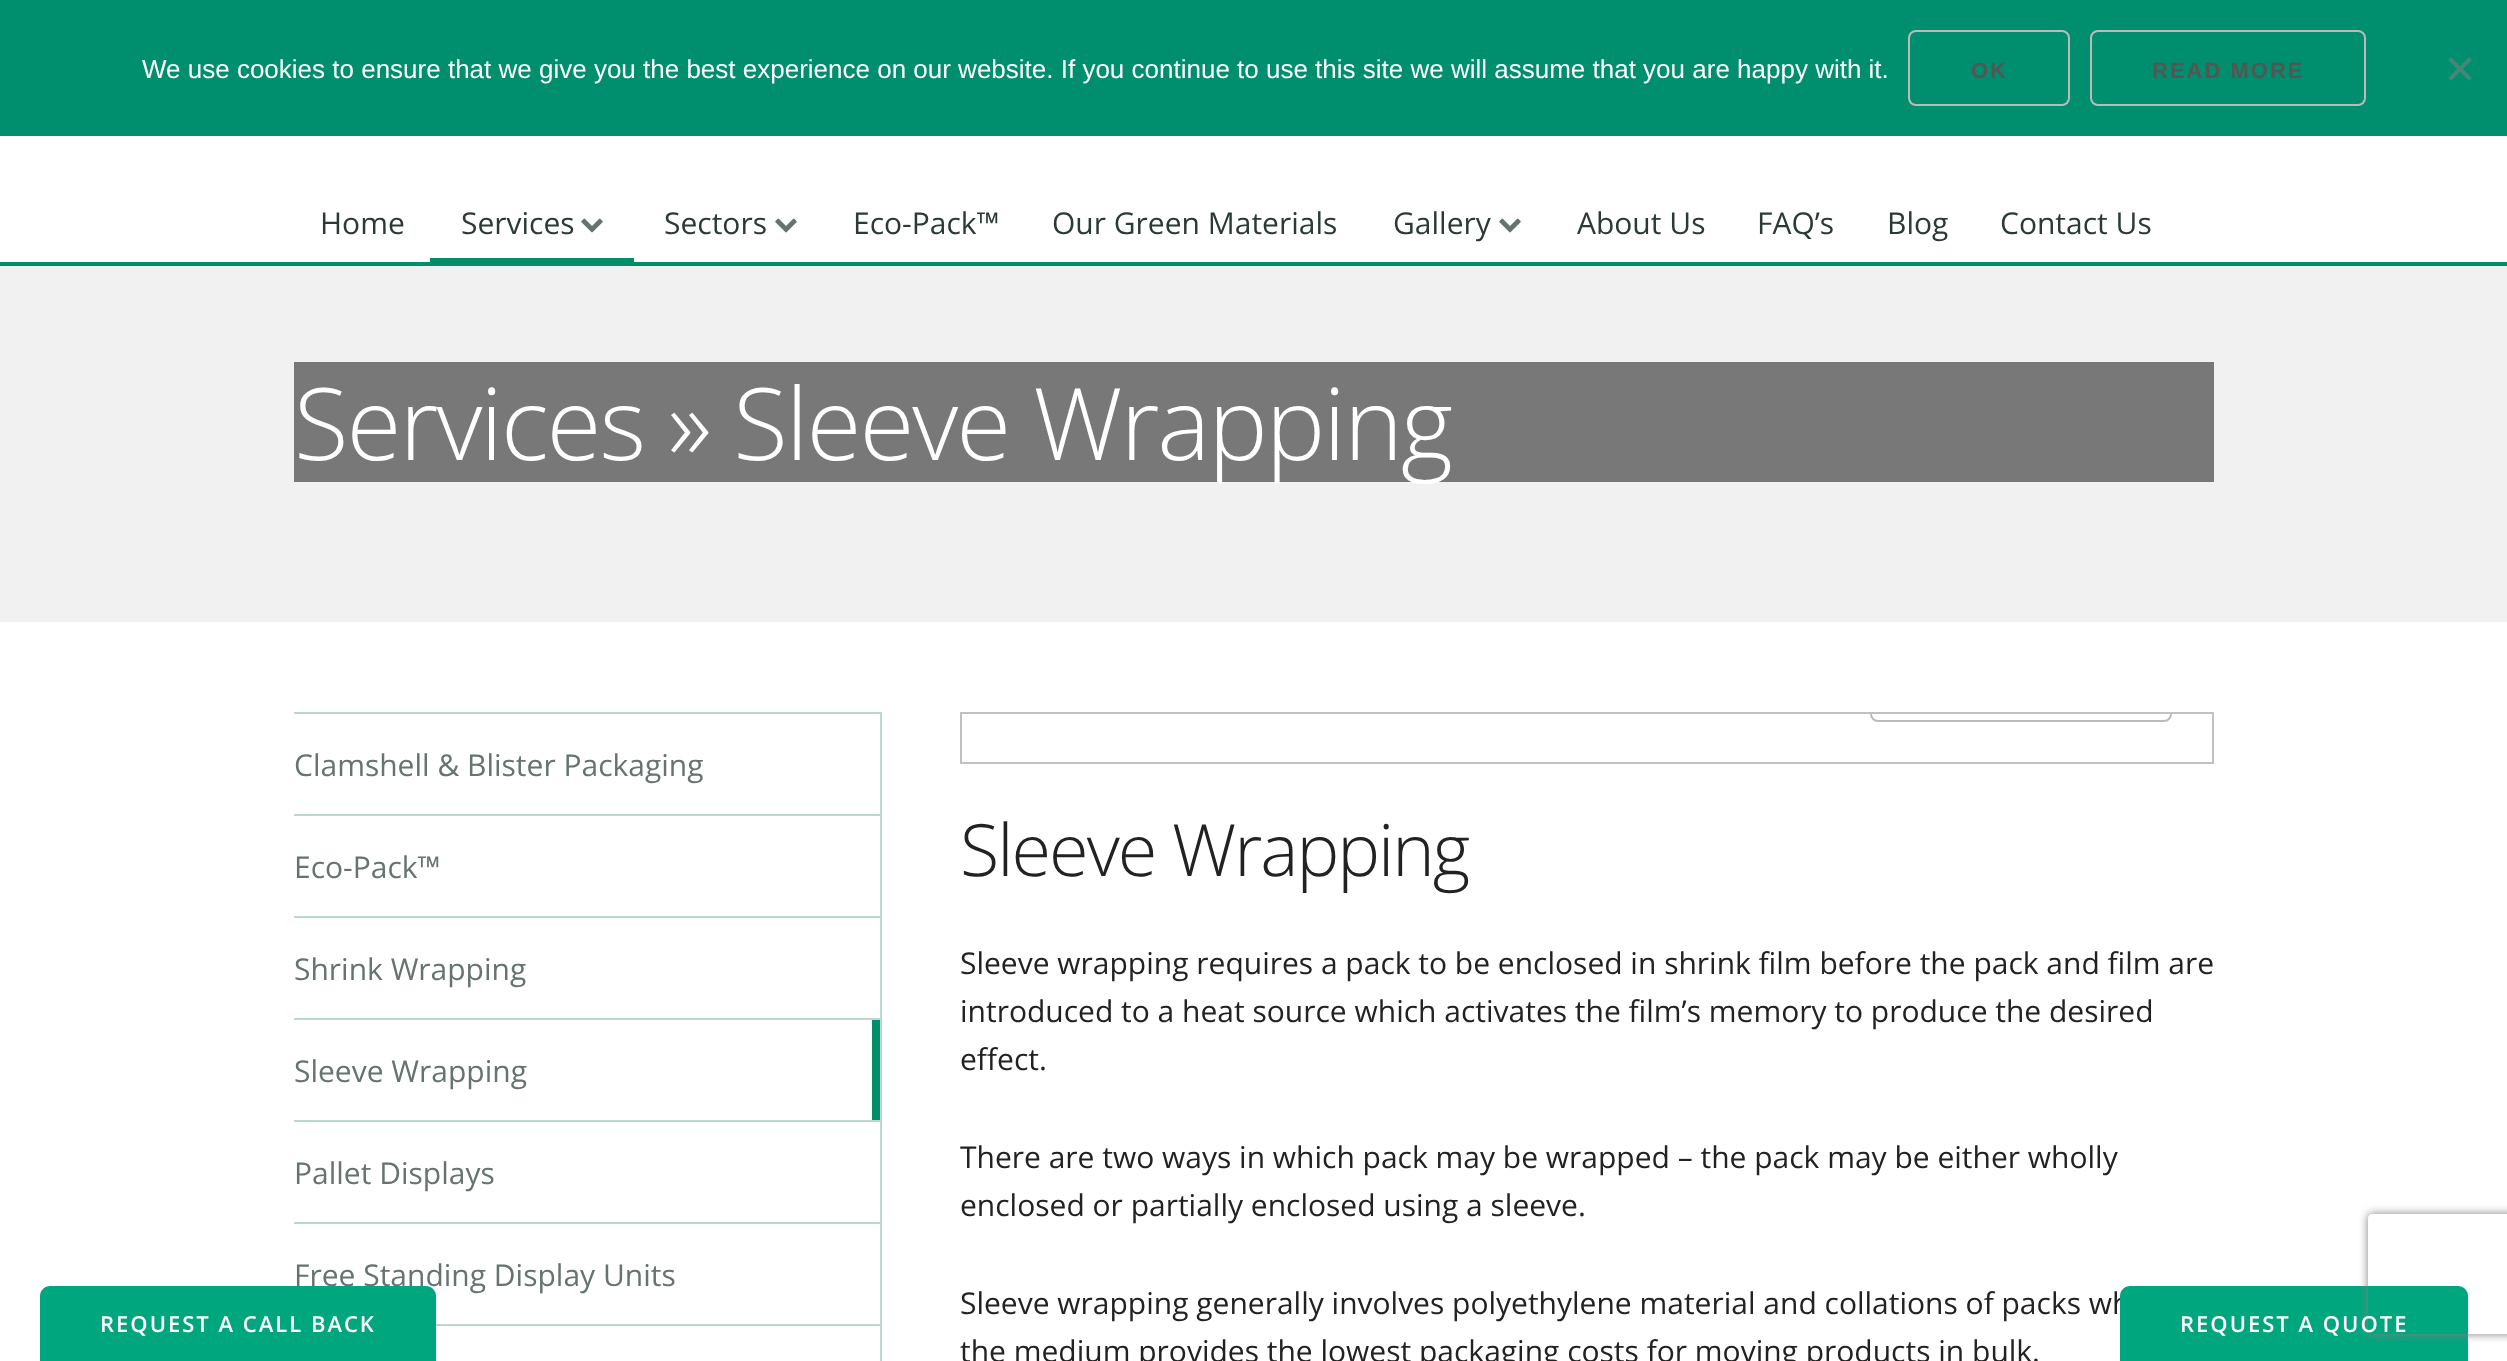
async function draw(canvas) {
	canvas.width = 2507;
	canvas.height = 1361;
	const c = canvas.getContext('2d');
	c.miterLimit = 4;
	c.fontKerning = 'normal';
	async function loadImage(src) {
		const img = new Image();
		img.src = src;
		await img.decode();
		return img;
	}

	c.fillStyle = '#fff';
	c.fillRect(0, 0, 2507, 1361);
	c.fillStyle = '#008f6e';
	c.fillRect(0, 0, 2507, 136);
	c.font = '26px Liberation Sans';
	c.fillStyle = '#fff';
	c.fillText('We use cookies to ensure that we give you the best experience on our website. If you continue to use this site we will assume that you are happy with it.', 142, 78);
	c.beginPath();
	c.roundRect(1909, 31, 160, 74, 7);
	c.strokeStyle = '#bbb';
	c.lineWidth = 2;
	c.stroke();
	c.letterSpacing = '2px';
	c.font = 'bold 22px Liberation Sans';
	c.fillStyle = '#555';
	c.fillText('OK', 1971, 78);
	c.beginPath();
	c.roundRect(2091, 31, 274, 74, 7);
	c.stroke();
	c.fillText('READ MORE', 2152, 78);
	c.fillStyle = '#408877';
	c.beginPath();
	c.moveTo(2469, 57);
	c.lineTo(2472, 60);
	c.lineTo(2451, 81);
	c.lineTo(2448, 78);
	c.closePath();
	c.fill();
	c.beginPath();
	c.moveTo(2448, 60);
	c.lineTo(2451, 57);
	c.lineTo(2472, 78);
	c.lineTo(2469, 81);
	c.closePath();
	c.fill();
	c.fillStyle = '#008d68';
	c.fillRect(0, 262, 2507, 4);
	c.letterSpacing = '0px';
	c.font = '30px Open Sans';
	c.fillStyle = '#2b3a35';
	c.fillText('Home', 320, 234);
	c.fillText('Services', 461, 234);
	c.drawImage(await loadImage('img1.png'), 581, 218, 22, 15);
	c.fillStyle = '#008d68';
	c.fillRect(430, 258, 204, 4);
	c.fillStyle = '#2b3a35';
	c.fillText('Sectors', 664, 234);
	c.drawImage(await loadImage('img1.png'), 775, 218, 22, 15);
	for (const [text, x, y] of [
		['Eco-Pack™', 853, 234],
		['Our Green Materials', 1052, 234],
		['Gallery', 1393, 234],
	]) {
		c.fillText(text, x, y);
	}
	c.drawImage(await loadImage('img1.png'), 1499, 218, 22, 15);
	for (const [text, x, y] of [
		['About Us', 1577, 234],
		['FAQ’s', 1757, 234],
		['Blog', 1887, 234],
		['Contact Us', 2000, 234],
	]) {
		c.fillText(text, x, y);
	}
	c.fillStyle = '#f1f1f1';
	c.fillRect(0, 266, 2507, 356);
	c.fillStyle = '#787878';
	c.fillRect(294, 362, 1920, 120);
	c.letterSpacing = '-2px';
	c.font = '300 100px Open Sans';
	c.fillStyle = '#fff';
	c.fillText('Services » Sleeve Wrapping', 294, 460);
	for (const [x, y, w, h, color] of [
		[294, 712, 588, 2, '#bcd8ca'],
		[880, 712, 2, 649, '#bcd8ca'],
		[294, 814, 588, 2, '#bcd8ca'],
	]) {
		c.fillStyle = color;
		c.fillRect(x, y, w, h);
	}
	c.letterSpacing = '0px';
	c.font = '30px Open Sans';
	c.fillStyle = '#66736f';
	c.fillText('Clamshell & Blister Packaging', 294, 776);
	c.fillStyle = '#bcd8ca';
	c.fillRect(294, 916, 588, 2);
	c.fillStyle = '#66736f';
	c.fillText('Eco-Pack™', 294, 878);
	c.fillStyle = '#bcd8ca';
	c.fillRect(294, 1018, 588, 2);
	c.fillStyle = '#66736f';
	c.fillText('Shrink Wrapping', 294, 980);
	c.fillStyle = '#bcd8ca';
	c.fillRect(294, 1120, 588, 2);
	c.fillStyle = '#66736f';
	c.fillText('Sleeve Wrapping', 294, 1082);
	c.fillStyle = '#008d68';
	c.fillRect(872, 1020, 8, 100);
	c.fillStyle = '#bcd8ca';
	c.fillRect(294, 1222, 588, 2);
	c.fillStyle = '#66736f';
	c.fillText('Pallet Displays', 294, 1184);
	c.fillStyle = '#bcd8ca';
	c.fillRect(436, 1324, 446, 2);
	c.fillStyle = '#66736f';
	c.fillText('Free Standing Display Units', 294, 1286);
	c.strokeStyle = '#c1c1c1';
	c.strokeRect(961, 713, 1252, 50);
	c.save();
	c.beginPath();
	c.rect(962, 714, 1250, 48);
	c.clip();
	c.beginPath();
	c.roundRect(1871, 647, 300, 74, 7);
	c.strokeStyle = '#bbb';
	c.stroke();
	c.restore();
	c.letterSpacing = '-2px';
	c.font = '300 72px Open Sans';
	c.fillStyle = '#222';
	c.fillText('Sleeve Wrapping', 960, 876);
	c.letterSpacing = '0px';
	c.font = '30px Open Sans';
	for (const [text, x, y] of [
		['Sleeve wrapping requires a pack to be enclosed in shrink film before the pack and film are', 960, 974],
		['introduced to a heat source which activates the film’s memory to produce the desired', 960, 1022],
		['effect.', 960, 1070],
		['There are two ways in which pack may be wrapped – the pack may be either wholly', 960, 1168],
		['enclosed or partially enclosed using a sleeve.', 960, 1216],
		['Sleeve wrapping generally involves polyethylene material and collations of packs wh', 960, 1314],
		['the medium provides the lowest packaging costs for moving products in bulk.', 960, 1362],
	]) {
		c.fillText(text, x, y);
	}
	c.fillStyle = '#00a67e';
	c.beginPath();
	c.moveTo(2130, 1286);
	c.lineTo(2458, 1286);
	c.bezierCurveTo(2463.5, 1286, 2468, 1290.5, 2468, 1296);
	c.lineTo(2468, 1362);
	c.lineTo(2120, 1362);
	c.lineTo(2120, 1296);
	c.bezierCurveTo(2120, 1290.5, 2124.5, 1286, 2130, 1286);
	c.closePath();
	c.fill();
	c.save();
	c.beginPath();
	c.moveTo(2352, 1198);
	c.lineTo(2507, 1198);
	c.lineTo(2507, 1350);
	c.lineTo(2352, 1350);
	c.closePath();
	c.moveTo(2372, 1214);
	c.lineTo(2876, 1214);
	c.bezierCurveTo(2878, 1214, 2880, 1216, 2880, 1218);
	c.lineTo(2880, 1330);
	c.bezierCurveTo(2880, 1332, 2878, 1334, 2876, 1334);
	c.lineTo(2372, 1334);
	c.bezierCurveTo(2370, 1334, 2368, 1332, 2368, 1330);
	c.lineTo(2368, 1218);
	c.bezierCurveTo(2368, 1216, 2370, 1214, 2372, 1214);
	c.closePath();
	c.clip('evenodd');
	c.fillStyle = '#808080';
	c.filter = 'blur(5px)';
	c.beginPath();
	c.roundRect(2368, 1214, 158, 120, 4);
	c.fill();
	c.filter = 'none';
	c.restore();
	c.beginPath();
	c.moveTo(50, 1286);
	c.lineTo(426, 1286);
	c.bezierCurveTo(431.5, 1286, 436, 1290.5, 436, 1296);
	c.lineTo(436, 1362);
	c.lineTo(40, 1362);
	c.lineTo(40, 1296);
	c.bezierCurveTo(40, 1290.5, 44.5, 1286, 50, 1286);
	c.closePath();
	c.fill();
	c.letterSpacing = '2px';
	c.font = '600 22px Open Sans';
	c.fillStyle = '#fff';
	c.fillText('REQUEST A CALL BACK', 100, 1332);
	c.fillText('REQUEST A QUOTE', 2180, 1332);
}

draw(document.querySelector('canvas'));
